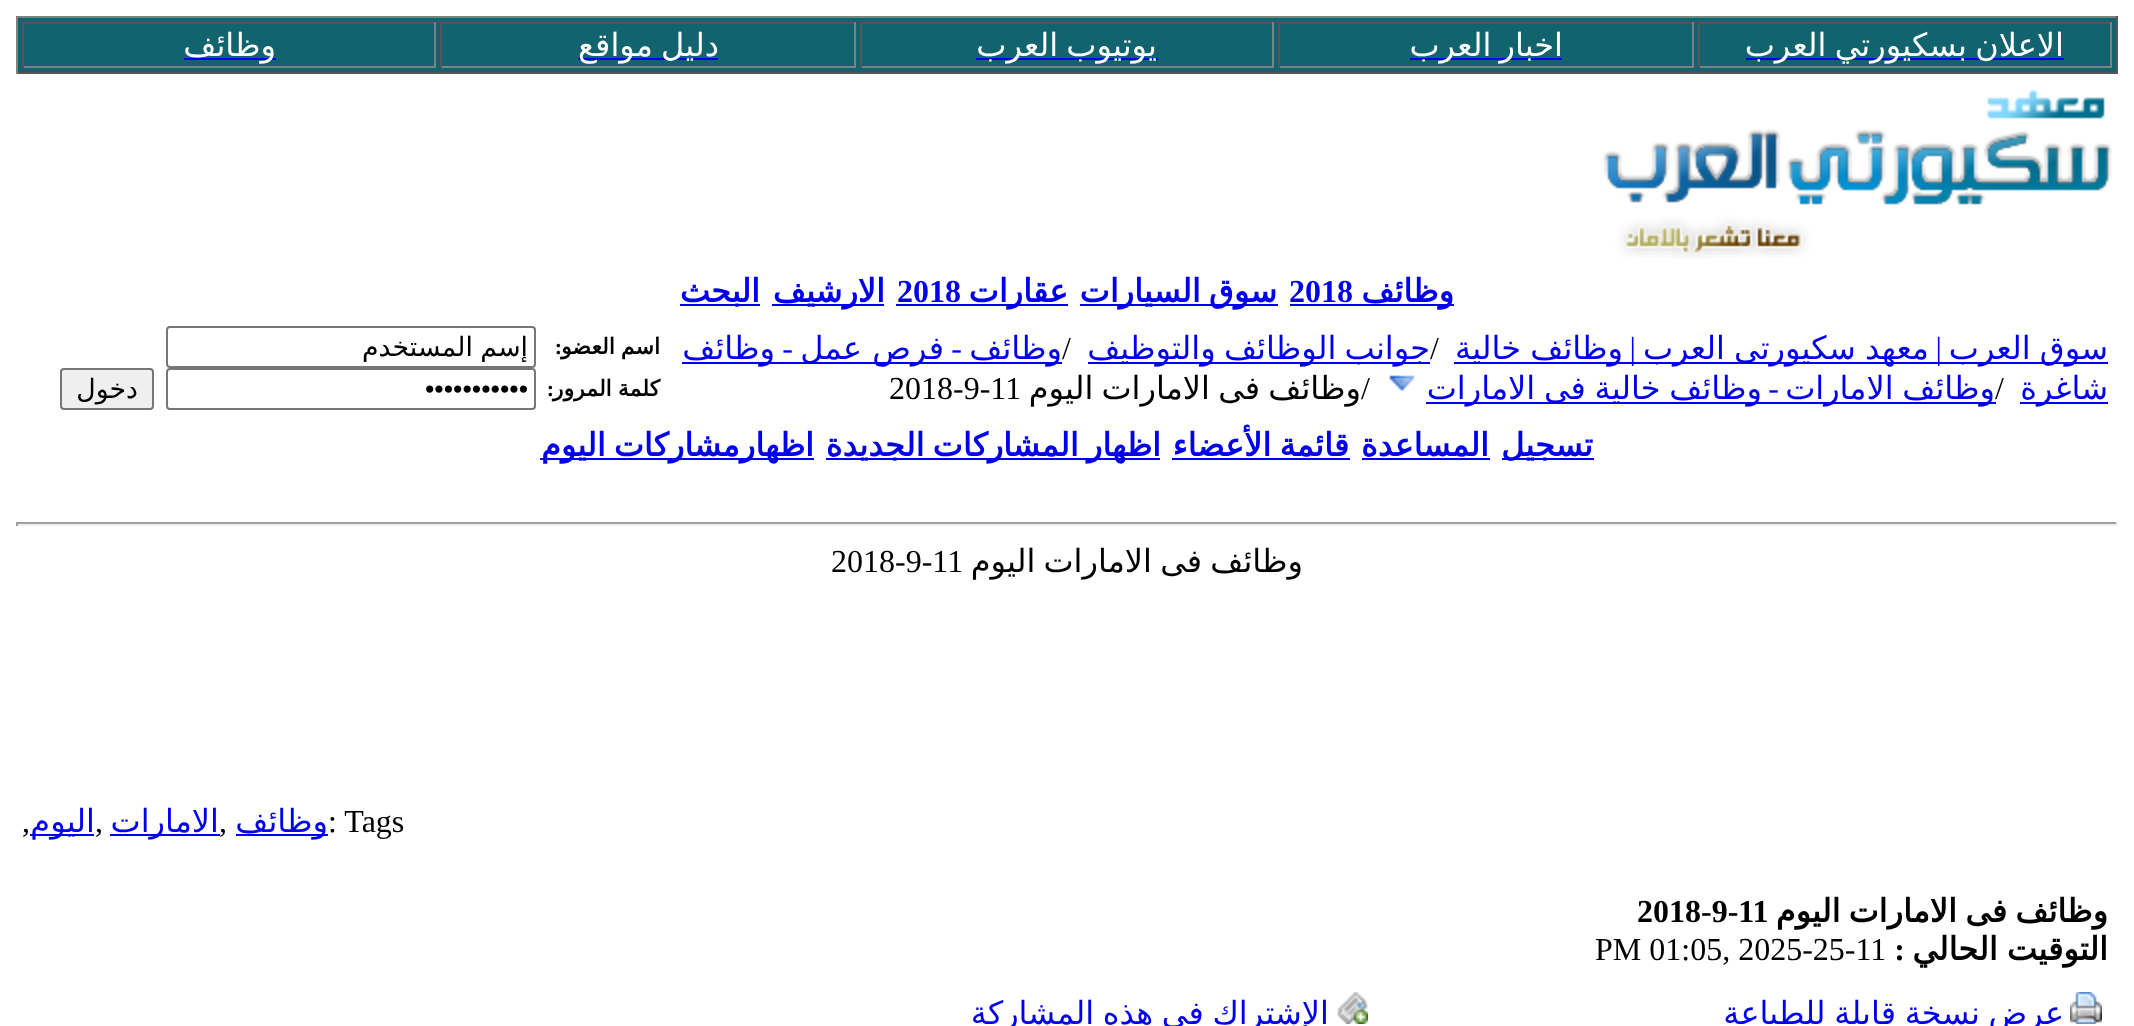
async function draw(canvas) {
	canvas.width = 2134;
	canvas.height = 1026;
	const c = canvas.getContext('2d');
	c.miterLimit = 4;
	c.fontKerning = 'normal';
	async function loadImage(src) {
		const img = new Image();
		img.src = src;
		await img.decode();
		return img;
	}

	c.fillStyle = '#fff';
	c.fillRect(0, 0, 2134, 1026);
	for (const [x, y, w, h, color] of [
		[18, 18, 2098, 54, '#11636e'],
		[16, 16, 2102, 2, '#808080'],
		[2116, 16, 2, 58, '#555'],
		[16, 72, 2102, 2, '#555'],
		[16, 16, 2, 58, '#808080'],
		[1698, 22, 414, 2, '#555'],
		[2110, 22, 2, 46, '#808080'],
		[1698, 66, 414, 2, '#808080'],
		[1698, 22, 2, 46, '#555'],
		[1746, 58, 318, 2, '#00e'],
	]) {
		c.fillStyle = color;
		c.fillRect(x, y, w, h);
	}
	c.wordSpacing = '-2px';
	c.direction = 'rtl';
	c.font = '32px DejaVu Sans';
	c.fillStyle = '#fff';
	c.fillText('الاعلان بسكيورتي العرب', 2064, 56);
	for (const [x, y, w, h, color] of [
		[1278, 22, 416, 2, '#555'],
		[1692, 22, 2, 46, '#808080'],
		[1278, 66, 416, 2, '#808080'],
		[1278, 22, 2, 46, '#555'],
		[1410, 58, 152, 2, '#00e'],
	]) {
		c.fillStyle = color;
		c.fillRect(x, y, w, h);
	}
	c.fillStyle = '#fff';
	c.fillText('اخبار العرب', 1563, 56);
	for (const [x, y, w, h, color] of [
		[860, 22, 414, 2, '#555'],
		[1272, 22, 2, 46, '#808080'],
		[860, 66, 414, 2, '#808080'],
		[860, 22, 2, 46, '#555'],
		[976, 58, 182, 2, '#00e'],
	]) {
		c.fillStyle = color;
		c.fillRect(x, y, w, h);
	}
	c.fillStyle = '#fff';
	c.fillText('يوتيوب العرب', 1157, 56);
	for (const [x, y, w, h, color] of [
		[440, 22, 416, 2, '#555'],
		[854, 22, 2, 46, '#808080'],
		[440, 66, 416, 2, '#808080'],
		[440, 22, 2, 46, '#555'],
		[578, 58, 140, 2, '#00e'],
	]) {
		c.fillStyle = color;
		c.fillRect(x, y, w, h);
	}
	c.fillStyle = '#fff';
	c.fillText('دليل مواقع', 719, 56);
	for (const [x, y, w, h, color] of [
		[22, 22, 414, 2, '#555'],
		[434, 22, 2, 46, '#808080'],
		[22, 66, 414, 2, '#808080'],
		[22, 22, 2, 46, '#555'],
		[184, 58, 92, 2, '#00e'],
	]) {
		c.fillStyle = color;
		c.fillRect(x, y, w, h);
	}
	c.wordSpacing = '0px';
	c.fillStyle = '#fff';
	c.fillText('وظائف', 276, 56);
	c.drawImage(await loadImage('img1.png'), 1603, 89, 509, 170);
	c.fillStyle = '#00e';
	c.fillRect(1290, 304, 164, 2);
	c.font = 'bold 32px DejaVu Sans';
	c.fillText('وظائف', 1454, 302);
	c.direction = 'ltr';
	c.font = 'bold 32px Liberation Serif';
	c.fillText('2018', 1289, 302);
	c.fillRect(1080, 304, 198, 2);
	c.wordSpacing = '-2px';
	c.direction = 'rtl';
	c.font = 'bold 32px DejaVu Sans';
	c.fillText('سوق السيارات', 1277, 302);
	c.fillRect(896, 304, 172, 2);
	c.wordSpacing = '0px';
	c.fillText('عقارات', 1068, 302);
	c.direction = 'ltr';
	c.font = 'bold 32px Liberation Serif';
	c.fillText('2018', 897, 302);
	c.fillRect(772, 304, 112, 2);
	c.direction = 'rtl';
	c.font = 'bold 32px DejaVu Sans';
	c.fillText('الارشيف', 885, 302);
	c.fillRect(680, 304, 80, 2);
	c.fillText('البحث', 760, 302);
	c.fillRect(1454, 362, 654, 2);
	c.wordSpacing = '-1px';
	c.font = '32px DejaVu Sans';
	c.fillText('سوق العرب', 2108, 359);
	c.wordSpacing = '0px';
	c.font = '32px Liberation Serif';
	c.fillText('|', 1942, 359);
	c.wordSpacing = '-1px';
	c.font = '32px DejaVu Sans';
	c.fillText('معهد سكيورتى العرب', 1929, 359);
	c.wordSpacing = '0px';
	c.font = '32px Liberation Serif';
	c.fillText('|', 1636, 359);
	c.wordSpacing = '-1px';
	c.font = '32px DejaVu Sans';
	c.fillText('وظائف خالية', 1623, 359);
	c.wordSpacing = '0px';
	c.direction = 'ltr';
	c.font = '32px Liberation Serif';
	c.fillStyle = '#000';
	c.fillText('/', 1430, 359);
	c.fillStyle = '#00e';
	c.fillRect(1088, 362, 342, 2);
	c.wordSpacing = '-2px';
	c.direction = 'rtl';
	c.font = '32px DejaVu Sans';
	c.fillText('جوانب الوظائف والتوظيف', 1430, 359);
	c.wordSpacing = '0px';
	c.direction = 'ltr';
	c.font = '32px Liberation Serif';
	c.fillStyle = '#000';
	c.fillText('/', 1062, 359);
	c.fillStyle = '#00e';
	c.fillRect(682, 362, 380, 2);
	c.direction = 'rtl';
	c.font = '32px DejaVu Sans';
	c.fillText('وظائف', 1062, 359);
	c.font = '32px Liberation Serif';
	c.fillText('-', 962, 359);
	c.font = '32px DejaVu Sans';
	c.fillText('فرص عمل', 944, 359);
	c.font = '32px Liberation Serif';
	c.fillText('-', 793, 359);
	c.font = '32px DejaVu Sans';
	c.fillText('وظائف', 775, 359);
	c.fillRect(2020, 402, 88, 2);
	c.fillText('شاغرة', 2108, 399);
	c.fillRect(1426, 402, 570, 2);
	c.wordSpacing = '-1.5px';
	c.fillText('وظائف الامارات', 1995, 399);
	c.fillText('وظائف خالية فى الامارات', 1762, 399);
	c.drawImage(await loadImage('img2.png'), 1389, 375, 26, 16);
	c.wordSpacing = '0px';
	c.direction = 'ltr';
	c.font = '32px Liberation Serif';
	c.fillStyle = '#000';
	c.fillText('/', 1361, 399);
	c.wordSpacing = '-2px';
	c.direction = 'rtl';
	c.font = '32px DejaVu Sans';
	c.fillText('وظائف فى الامارات اليوم', 1361, 399);
	c.wordSpacing = '0px';
	c.direction = 'ltr';
	c.font = '32px Liberation Serif';
	c.fillText('2018-9-11', 889, 399);
	c.fillText('/', 1995, 399);
	c.direction = 'rtl';
	c.fillStyle = '#00e';
	c.fillText('-', 1779, 399);
	c.wordSpacing = '-1px';
	c.font = 'bold 22px DejaVu Sans';
	c.fillStyle = '#000';
	c.fillText('اسم العضو', 660, 354);
	c.wordSpacing = '0px';
	c.font = 'bold 22px Liberation Serif';
	c.fillText(':', 562, 354);
	c.beginPath();
	c.roundRect(167, 327, 368, 40, 3);
	c.strokeStyle = '#767676';
	c.lineWidth = 2;
	c.stroke();
	c.save();
	c.beginPath();
	c.rect(174, 332, 354, 30);
	c.clip();
	c.wordSpacing = '-1px';
	c.font = '26.75px DejaVu Sans';
	c.fillText('إسم المستخدم', 528, 356);
	c.restore();
	c.wordSpacing = '-1px';
	c.font = 'bold 22px DejaVu Sans';
	c.fillText('كلمة المرور', 660, 396);
	c.wordSpacing = '0px';
	c.font = 'bold 22px Liberation Serif';
	c.fillText(':', 554, 396);
	c.beginPath();
	c.roundRect(167, 369, 368, 40, 3);
	c.stroke();
	c.direction = 'ltr';
	c.font = '26.75px Liberation Sans';
	c.fillText('•••••••••••', 425, 398);
	c.fillStyle = '#efefef';
	c.beginPath();
	c.roundRect(61, 369, 92, 40, 3);
	c.fill();
	c.stroke();
	c.direction = 'rtl';
	c.font = '26.75px DejaVu Sans';
	c.fillStyle = '#000';
	c.fillText('دخول', 138, 398);
	c.fillStyle = '#00e';
	c.fillRect(1502, 458, 92, 2);
	c.font = 'bold 32px DejaVu Sans';
	c.fillText('تسجيل', 1593, 456);
	c.fillText('المساعدة', 1489, 456);
	c.fillRect(1362, 458, 128, 2);
	c.wordSpacing = '-2px';
	c.fillText('قائمة الأعضاء', 1349, 456);
	c.fillRect(1172, 458, 178, 2);
	c.fillRect(826, 458, 334, 2);
	c.fillText('اظهار المشاركات الجديدة', 1161, 456);
	c.fillRect(540, 458, 274, 2);
	c.fillText('اظهارمشاركات اليوم', 814, 456);
	for (const [x, y, w, h, color] of [
		[16, 522, 2102, 2, '#9f9f9f'],
		[2116, 522, 2, 4, '#eee'],
		[16, 524, 2102, 2, '#eee'],
		[16, 522, 2, 4, '#9f9f9f'],
	]) {
		c.fillStyle = color;
		c.fillRect(x, y, w, h);
	}
	c.font = '32px DejaVu Sans';
	c.fillStyle = '#000';
	c.fillText('وظائف فى الامارات اليوم', 1303, 572);
	c.wordSpacing = '0px';
	c.direction = 'ltr';
	c.font = '32px Liberation Serif';
	c.fillText('2018-9-11', 831, 572);
	c.fillText(': Tags', 328, 832);
	c.fillStyle = '#00e';
	c.fillRect(236, 834, 92, 2);
	c.direction = 'rtl';
	c.font = '32px DejaVu Sans';
	c.fillText('وظائف', 328, 832);
	c.direction = 'ltr';
	c.font = '32px Liberation Serif';
	c.fillStyle = '#000';
	c.fillText(',', 219, 832);
	c.fillStyle = '#00e';
	c.fillRect(110, 834, 110, 2);
	c.direction = 'rtl';
	c.font = '32px DejaVu Sans';
	c.fillText('الامارات', 219, 832);
	c.direction = 'ltr';
	c.font = '32px Liberation Serif';
	c.fillStyle = '#000';
	c.fillText(',', 95, 832);
	c.fillStyle = '#00e';
	c.fillRect(30, 834, 64, 2);
	c.direction = 'rtl';
	c.font = '32px DejaVu Sans';
	c.fillText('اليوم', 95, 832);
	c.direction = 'ltr';
	c.font = '32px Liberation Serif';
	c.fillStyle = '#000';
	c.fillText(',', 22, 832);
	c.wordSpacing = '-2px';
	c.direction = 'rtl';
	c.font = 'bold 32px DejaVu Sans';
	c.fillText('وظائف فى الامارات اليوم', 2108, 922);
	c.wordSpacing = '0px';
	c.direction = 'ltr';
	c.font = 'bold 32px Liberation Serif';
	c.fillText('2018-9-11', 1637, 922);
	c.wordSpacing = '-1px';
	c.direction = 'rtl';
	c.font = 'bold 32px DejaVu Sans';
	c.fillText('التوقيت الحالي', 2108, 960);
	c.wordSpacing = '0px';
	c.font = 'bold 32px Liberation Serif';
	c.fillText(':', 1905, 960);
	c.direction = 'ltr';
	c.font = '32px Liberation Serif';
	c.fillText('PM 01:05, 2025-25-11', 1595, 960);
	c.drawImage(await loadImage('img3.png'), 2070, 992, 32, 32);
	c.wordSpacing = '-1.5px';
	c.direction = 'rtl';
	c.font = '32px DejaVu Sans';
	c.fillStyle = '#00e';
	c.fillText('عرض نسخة قابلة للطباعة', 2064, 1024);
	c.drawImage(await loadImage('img4.png'), 1337, 992, 31, 32);
	c.fillText('الإشتراك في هذه المشاركة', 1329, 1024);
}

draw(document.querySelector('canvas'));
